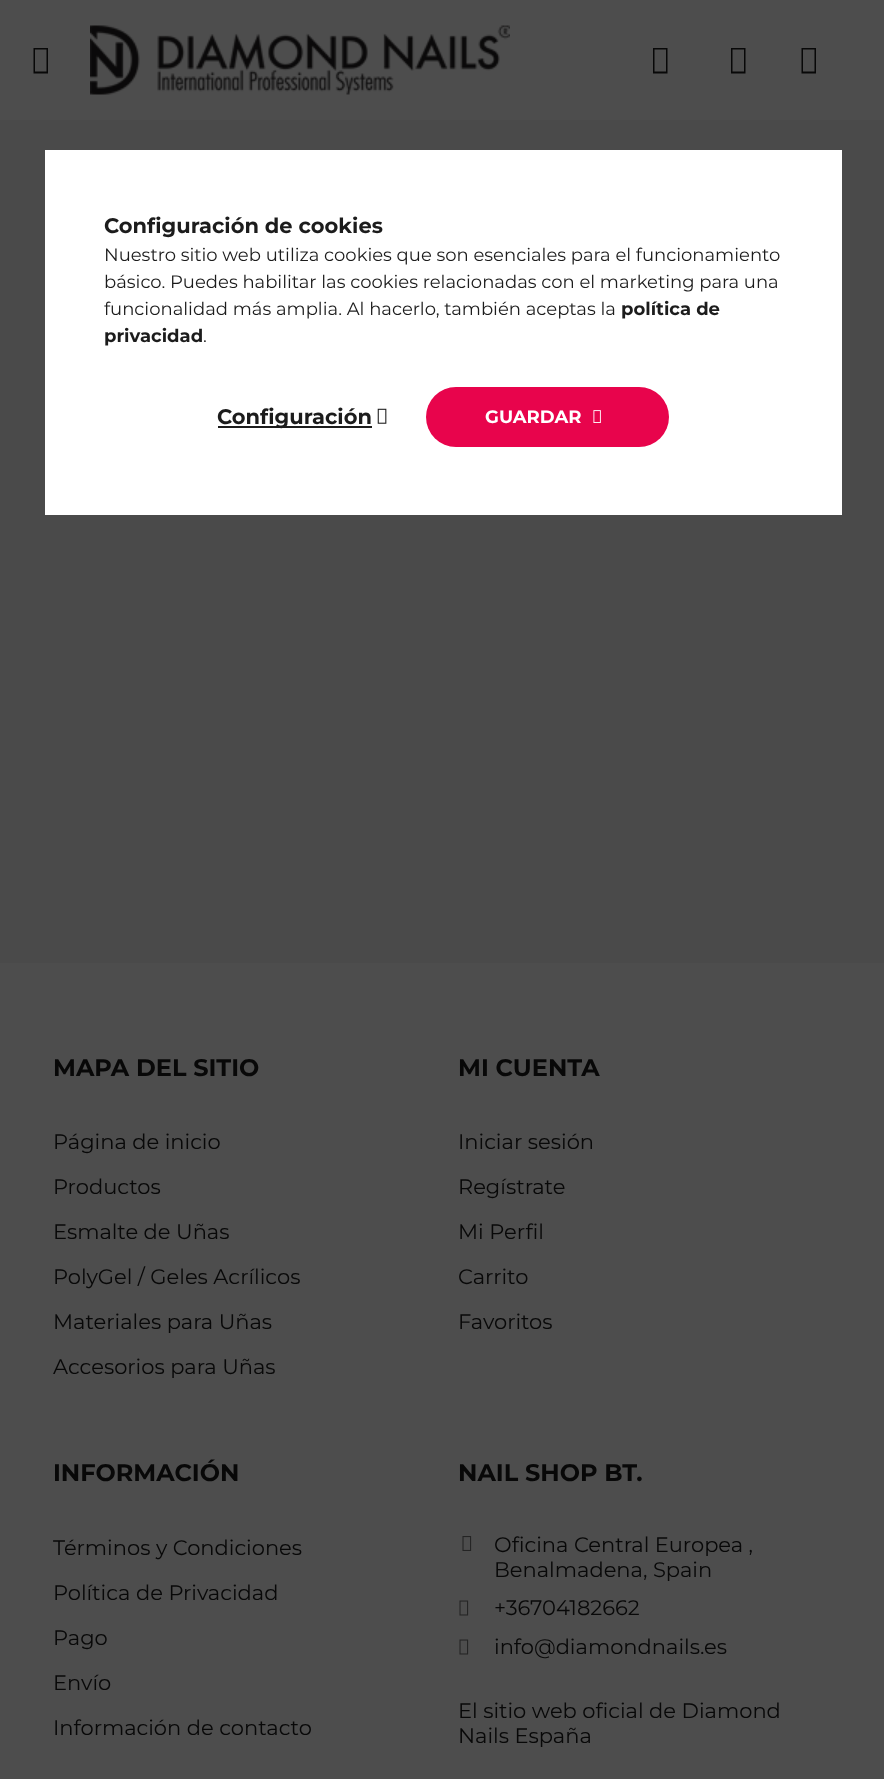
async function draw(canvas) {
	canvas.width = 884;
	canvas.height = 1779;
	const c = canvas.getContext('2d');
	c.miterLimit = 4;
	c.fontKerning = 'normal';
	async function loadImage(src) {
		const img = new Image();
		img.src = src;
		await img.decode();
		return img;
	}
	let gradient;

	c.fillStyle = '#4a4a4a';
	c.fillRect(0, 0, 884, 1779);
	gradient = c.createLinearGradient(30, 326, 855, 325);
	gradient.addColorStop(0.1, '#4a4a4a');
	gradient.addColorStop(0.5, '#424242');
	gradient.addColorStop(0.9, '#4a4a4a');
	c.fillStyle = gradient;
	c.fillRect(216, 312, 453, 27);
	gradient = c.createLinearGradient(443, 339, 443, 312);
	gradient.addColorStop(0, '#4a4a4a');
	gradient.addColorStop(1, '#4a4a4a00');
	c.fillStyle = gradient;
	c.fillRect(216, 319, 453, 20);
	c.fillStyle = '#fff';
	c.fillRect(45, 150, 797, 365);
	c.font = 'bold 21px Montserrat';
	c.fillStyle = '#1c1c1c';
	c.fillText('Configuración de cookies', 104, 233);
	c.font = '18px Montserrat';
	for (const [text, x, y] of [
		['Nuestro sitio web utiliza cookies que son esenciales para el funcionamiento', 104, 261],
		['básico. Puedes habilitar las cookies relacionadas con el marketing para una', 104, 288],
		['funcionalidad más amplia. Al hacerlo, también aceptas la', 104, 315],
	]) {
		c.fillText(text, x, y);
	}
	c.font = 'bold 18px Montserrat';
	c.fillText('política de', 621, 315);
	c.fillText('privacidad', 104, 342);
	c.font = '18px Montserrat';
	c.fillText('.', 203, 342);
	c.fillRect(218, 426, 154, 2);
	c.font = 'bold 21px Montserrat';
	c.fillText('Configuración', 217, 424);
	c.drawImage(await loadImage('img1.png'), 377, 408, 10, 16);
	c.fillStyle = '#e8044c';
	c.beginPath();
	c.roundRect(426, 387, 243, 60, 30);
	c.fill();
	c.font = 'bold 18px Montserrat';
	c.fillStyle = '#fff';
	c.fillText('GUARDAR', 485, 423);
	c.drawImage(await loadImage('img2.png'), 593, 410, 8, 13);
	c.fillStyle = '#4d4d4d';
	c.fillRect(0, 0, 884, 120);
	c.fillStyle = '#080808';
	c.beginPath();
	c.moveTo(33.5, 73.5);
	c.lineTo(33.5, 48);
	c.lineTo(48, 48);
	c.lineTo(48, 73.5);
	c.closePath();
	c.moveTo(35, 71.5);
	c.lineTo(46.5, 71.5);
	c.lineTo(46.5, 49.5);
	c.lineTo(35, 49.5);
	c.closePath();
	c.fill();
	c.drawImage(await loadImage('img3.png'), 90, 25, 420, 70);
	c.beginPath();
	c.moveTo(653, 73.5);
	c.lineTo(653, 48);
	c.lineTo(667.5, 48);
	c.lineTo(667.5, 73.5);
	c.closePath();
	c.moveTo(654.5, 71.5);
	c.lineTo(666, 71.5);
	c.lineTo(666, 49.5);
	c.lineTo(654.5, 49.5);
	c.closePath();
	c.fill();
	c.beginPath();
	c.moveTo(731, 73.5);
	c.lineTo(731, 48);
	c.lineTo(745.5, 48);
	c.lineTo(745.5, 73.5);
	c.closePath();
	c.moveTo(732.5, 71.5);
	c.lineTo(744, 71.5);
	c.lineTo(744, 49.5);
	c.lineTo(732.5, 49.5);
	c.closePath();
	c.fill();
	c.beginPath();
	c.moveTo(801.5, 73.5);
	c.lineTo(801.5, 48);
	c.lineTo(816, 48);
	c.lineTo(816, 73.5);
	c.closePath();
	c.moveTo(803, 71.5);
	c.lineTo(814.5, 71.5);
	c.lineTo(814.5, 49.5);
	c.lineTo(803, 49.5);
	c.closePath();
	c.fill();
	c.fillStyle = '#4d4d4d';
	c.fillRect(0, 963, 884, 816);
	c.font = 'bold 24px Montserrat';
	c.fillStyle = '#080808';
	c.fillText('MAPA DEL SITIO', 53, 1076);
	c.font = '21px Montserrat';
	for (const [text, x, y] of [
		['Página de inicio', 53, 1149],
		['Productos', 53, 1194],
		['Esmalte de Uñas', 53, 1239],
		['PolyGel / Geles Acrílicos', 53, 1284],
		['Materiales para Uñas', 53, 1329],
		['Accesorios para Uñas', 53, 1374],
	]) {
		c.fillText(text, x, y);
	}
	c.font = 'bold 24px Montserrat';
	c.fillText('MI CUENTA', 458, 1076);
	c.font = '21px Montserrat';
	for (const [text, x, y] of [
		['Iniciar sesión', 458, 1149],
		['Regístrate', 458, 1194],
		['Mi Perfil', 458, 1239],
		['Carrito', 458, 1284],
		['Favoritos', 458, 1329],
	]) {
		c.fillText(text, x, y);
	}
	c.font = 'bold 24px Montserrat';
	c.fillText('INFORMACIÓN', 53, 1481);
	c.font = '21px Montserrat';
	for (const [text, x, y] of [
		['Términos y Condiciones', 53, 1555],
		['Política de Privacidad', 53, 1600],
		['Pago', 53, 1645],
		['Envío', 53, 1690],
		['Información de contacto', 53, 1735],
	]) {
		c.fillText(text, x, y);
	}
	c.font = 'bold 24px Montserrat';
	c.fillText('NAIL SHOP BT.', 458, 1481);
	c.drawImage(await loadImage('img4.png'), 462, 1536, 10, 15);
	c.font = '21px Montserrat';
	c.fillText('Oficina Central Europea ,', 494, 1552);
	c.fillText('Benalmadena, Spain', 494, 1577);
	c.drawImage(await loadImage('img5.png'), 459, 1600, 10, 16);
	c.fillText('+36704182662', 494, 1615);
	c.drawImage(await loadImage('img5.png'), 459, 1639, 10, 16);
	for (const [text, x, y] of [
		['info@diamondnails.es', 494, 1654],
		['El sitio web oficial de Diamond', 458, 1718],
		['Nails España', 458, 1743],
	]) {
		c.fillText(text, x, y);
	}
}

draw(document.querySelector('canvas'));
